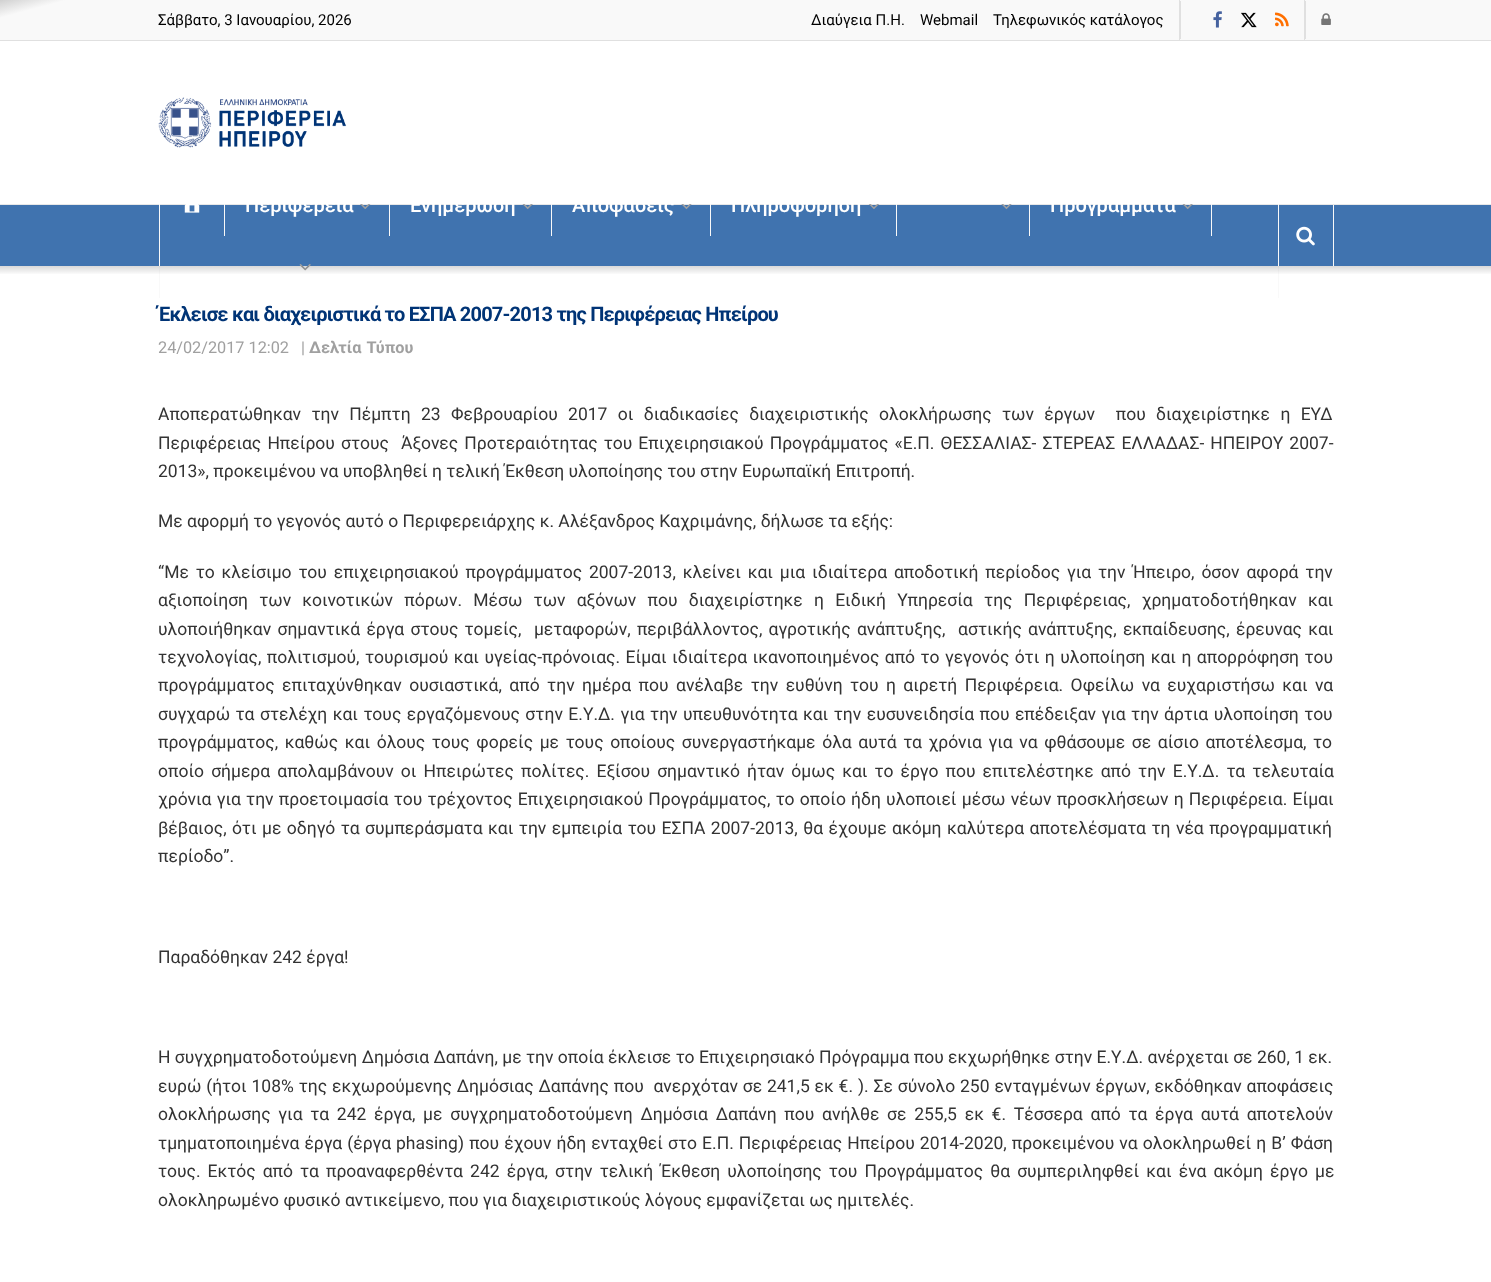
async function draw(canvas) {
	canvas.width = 1491;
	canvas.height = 1282;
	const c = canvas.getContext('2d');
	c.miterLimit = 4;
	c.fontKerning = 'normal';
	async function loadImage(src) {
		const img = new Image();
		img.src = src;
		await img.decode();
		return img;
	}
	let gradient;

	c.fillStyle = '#fff';
	c.fillRect(0, 0, 1491, 1282);
	gradient = c.createLinearGradient(801, 225, 691, -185);
	gradient.addColorStop(0.96, '#f9f9f9');
	gradient.addColorStop(1, '#d1d1d1');
	c.fillStyle = gradient;
	c.fillRect(0, 0, 1491, 40);
	c.fillStyle = '#e0e0e0';
	c.fillRect(0, 40, 1491, 1);
	c.font = '15px Roboto';
	c.fillStyle = '#000';
	c.fillText('Σάββατο, 3 Ιανουαρίου, 2026', 158, 25);
	c.fillStyle = '#e0e0e0';
	c.fillRect(1179, 0, 1, 40);
	c.fillStyle = '#000';
	for (const [text, x, y] of [
		['Διαύγεια Π.H.', 811, 25],
		['Webmail', 920, 25],
		['Τηλεφωνικός κατάλογος', 993, 25],
	]) {
		c.fillText(text, x, y);
	}
	c.fillStyle = '#e0e0e0';
	c.fillRect(1180, 1, 1, 38);
	c.fillRect(1304, 0, 1, 41);
	c.drawImage(await loadImage('img1.png'), 1213, 11, 9, 17);
	c.drawImage(await loadImage('img2.png'), 1241, 12, 16, 16);
	c.drawImage(await loadImage('img3.png'), 1275, 12, 14, 15);
	c.fillRect(1305, 1, 1, 38);
	c.drawImage(await loadImage('img4.png'), 1321, 13, 10, 12);
	c.drawImage(await loadImage('img5.png'), 158, 97, 189, 51);
	for (const [x, y, w, h, color] of [
		[0, 205, 1491, 61, '#4073af'],
		[0, 204, 1491, 1, '#e8e8e8'],
		[1278, 204, 1, 94, '#f9f9f9'],
		[159, 204, 1, 94, '#f9f9f9'],
		[224, 204, 1, 32, '#f9f9f9'],
	]) {
		c.fillStyle = color;
		c.fillRect(x, y, w, h);
	}
	c.drawImage(await loadImage('img6.png'), 184, 204, 16, 9);
	c.fillRect(389, 204, 1, 32);
	c.font = '500 20px Roboto';
	c.fillStyle = '#fff';
	c.fillText('Περιφέρεια', 245, 212);
	c.drawImage(await loadImage('img7.png'), 360, 204, 11, 5);
	c.fillStyle = '#f9f9f9';
	c.fillRect(551, 204, 1, 32);
	c.fillStyle = '#fff';
	c.fillText('Ενημέρωση', 410, 212);
	c.drawImage(await loadImage('img8.png'), 522, 204, 11, 6);
	c.fillStyle = '#f9f9f9';
	c.fillRect(710, 204, 1, 32);
	c.fillStyle = '#fff';
	c.fillText('Αποφάσεις', 572, 212);
	c.drawImage(await loadImage('img9.png'), 681, 204, 11, 6);
	c.fillStyle = '#f9f9f9';
	c.fillRect(896, 204, 1, 32);
	c.fillStyle = '#fff';
	c.fillText('Πληροφόρηση', 731, 212);
	c.drawImage(await loadImage('img10.png'), 868, 204, 12, 5);
	c.fillStyle = '#f9f9f9';
	c.fillRect(1029, 204, 1, 32);
	c.drawImage(await loadImage('img9.png'), 1001, 204, 11, 6);
	c.fillRect(1211, 204, 1, 32);
	c.fillStyle = '#fff';
	c.fillText('Προγράμματα', 1050, 212);
	c.drawImage(await loadImage('img8.png'), 1182, 204, 11, 6);
	c.drawImage(await loadImage('img11.png'), 299, 264, 12, 7);
	c.fillStyle = '#f9f9f9';
	c.fillRect(1333, 205, 1, 61);
	c.drawImage(await loadImage('img12.png'), 1296, 226, 19, 20);
	gradient = c.createLinearGradient(746, 266, 746, 275);
	gradient.addColorStop(0, '#00000026');
	gradient.addColorStop(1, '#00000000');
	c.fillStyle = gradient;
	c.fillRect(0, 266, 1491, 8);
	c.letterSpacing = '-0.8px';
	c.font = 'bold 20px Roboto';
	c.fillStyle = '#003476';
	c.fillText('Έκλεισε και διαχειριστικά το ΕΣΠΑ 2007-2013 της Περιφέρειας Ηπείρου', 158, 321);
	c.letterSpacing = '0px';
	c.font = '16.25px Roboto';
	c.fillStyle = '#a0a0a0';
	c.fillText('24/02/2017 12:02', 158, 353);
	c.fillText('|', 301, 353);
	c.wordSpacing = '1px';
	c.font = 'bold 16.25px Roboto';
	c.fillText('Δελτία Τύπου', 309, 353);
	c.wordSpacing = '6px';
	c.font = '17.5px Roboto';
	c.fillStyle = '#333';
	c.fillText('Αποπερατώθηκαν την Πέμπτη 23 Φεβρουαρίου 2017 οι διαδικασίες διαχειριστικής ολοκλήρωσης των έργων  που διαχειρίστηκε η ΕΥΔ', 158, 420);
	c.wordSpacing = '1.75px';
	c.fillText('Περιφέρειας Ηπείρου στους  Άξονες Προτεραιότητας του Επιχειρησιακού Προγράμματος «Ε.Π. ΘΕΣΣΑΛΙΑΣ- ΣΤΕΡΕΑΣ ΕΛΛΑΔΑΣ- ΗΠΕΙΡΟΥ 2007-', 158, 449);
	c.wordSpacing = '0px';
	c.fillText('2013», προκειμένου να υποβληθεί η τελική Έκθεση υλοποίησης του στην Ευρωπαϊκή Επιτροπή.', 158, 477);
	c.fillText('Με αφορμή το γεγονός αυτό ο Περιφερειάρχης κ. Αλέξανδρος Καχριμάνης, δήλωσε τα εξής:', 158, 527);
	c.wordSpacing = '2.5px';
	c.fillText('“Με το κλείσιμο του επιχειρησιακού προγράμματος 2007-2013, κλείνει και μια ιδιαίτερα αποδοτική περίοδος για την Ήπειρο, όσον αφορά την', 158, 578);
	c.wordSpacing = '6.9px';
	c.fillText('αξιοποίηση των κοινοτικών πόρων. Μέσω των αξόνων που διαχειρίστηκε η Ειδική Υπηρεσία της Περιφέρειας, χρηματοδοτήθηκαν και', 158, 606);
	c.wordSpacing = '1.9px';
	c.fillText('υλοποιήθηκαν σημαντικά έργα στους τομείς,  μεταφορών, περιβάλλοντος, αγροτικής ανάπτυξης,  αστικής ανάπτυξης, εκπαίδευσης, έρευνας και', 158, 635);
	c.wordSpacing = '1.1px';
	c.fillText('τεχνολογίας, πολιτισμού, τουρισμού και υγείας-πρόνοιας. Είμαι ιδιαίτερα ικανοποιημένος από το γεγονός ότι η υλοποίηση και η απορρόφηση του', 158, 663);
	c.wordSpacing = '3.1px';
	c.fillText('προγράμματος επιταχύνθηκαν ουσιαστικά, από την ημέρα που ανέλαβε την ευθύνη του η αιρετή Περιφέρεια. Οφείλω να ευχαριστήσω και να', 158, 691);
	c.wordSpacing = '1.1px';
	c.fillText('συγχαρώ τα στελέχη και τους εργαζόμενους στην Ε.Υ.Δ. για την υπευθυνότητα και την ευσυνειδησία που επέδειξαν για την άρτια υλοποίηση του', 158, 720);
	c.wordSpacing = '2.25px';
	c.fillText('προγράμματος, καθώς και όλους τους φορείς με τους οποίους συνεργαστήκαμε όλα αυτά τα χρόνια για να φθάσουμε σε αίσιο αποτέλεσμα, το', 158, 748);
	c.wordSpacing = '2.75px';
	c.fillText('οποίο σήμερα απολαμβάνουν οι Ηπειρώτες πολίτες. Εξίσου σημαντικό ήταν όμως και το έργο που επιτελέστηκε από την Ε.Υ.Δ. τα τελευταία', 158, 777);
	c.wordSpacing = '0.9px';
	c.fillText('χρόνια για την προετοιμασία του τρέχοντος Επιχειρησιακού Προγράμματος, το οποίο ήδη υλοποιεί μέσω νέων προσκλήσεων η Περιφέρεια. Είμαι', 158, 805);
	c.wordSpacing = '1.1px';
	c.fillText('βέβαιος, ότι με οδηγό τα συμπεράσματα και την εμπειρία του ΕΣΠΑ 2007-2013, θα έχουμε ακόμη καλύτερα αποτελέσματα τη νέα προγραμματική', 158, 834);
	c.wordSpacing = '0px';
	for (const [text, x, y] of [
		['περίοδο”.', 158, 862],
		['Παραδόθηκαν 242 έργα!', 158, 963],
		['Η συγχρηματοδοτούμενη Δημόσια Δαπάνη, με την οποία έκλεισε το Επιχειρησιακό Πρόγραμμα που εκχωρήθηκε στην Ε.Υ.Δ. ανέρχεται σε 260, 1 εκ.', 158, 1063],
	]) {
		c.fillText(text, x, y);
	}
	c.wordSpacing = '0.5px';
	c.fillText('ευρώ (ήτοι 108% της εκχωρούμενης Δημόσιας Δαπάνης που  ανερχόταν σε 241,5 εκ €. ). Σε σύνολο 250 ενταγμένων έργων, εκδόθηκαν αποφάσεις', 158, 1092);
	c.wordSpacing = '3.4px';
	c.fillText('ολοκλήρωσης για τα 242 έργα, με συγχρηματοδοτούμενη Δημόσια Δαπάνη που ανήλθε σε 255,5 εκ €. Τέσσερα από τα έργα αυτά αποτελούν', 158, 1120);
	c.wordSpacing = '0.75px';
	c.fillText('τμηματοποιημένα έργα (έργα', 158, 1149);
	c.wordSpacing = '0px';
	c.fillText('phasing', 396, 1149);
	c.wordSpacing = '0.75px';
	c.fillText(') που έχουν ήδη ενταχθεί στο Ε.Π. Περιφέρειας Ηπείρου 2014-2020, προκειμένου να ολοκληρωθεί η Β’ Φάση', 458, 1149);
	c.wordSpacing = '2.75px';
	c.fillText('τους. Εκτός από τα προαναφερθέντα 242 έργα, στην τελική Έκθεση υλοποίησης του Προγράμματος θα συμπεριληφθεί και ένα ακόμη έργο με', 158, 1177);
	c.wordSpacing = '0px';
	c.fillText('ολοκληρωμένο φυσικό αντικείμενο, που για διαχειριστικούς λόγους εμφανίζεται ως ημιτελές.', 158, 1206);
}

draw(document.querySelector('canvas'));
